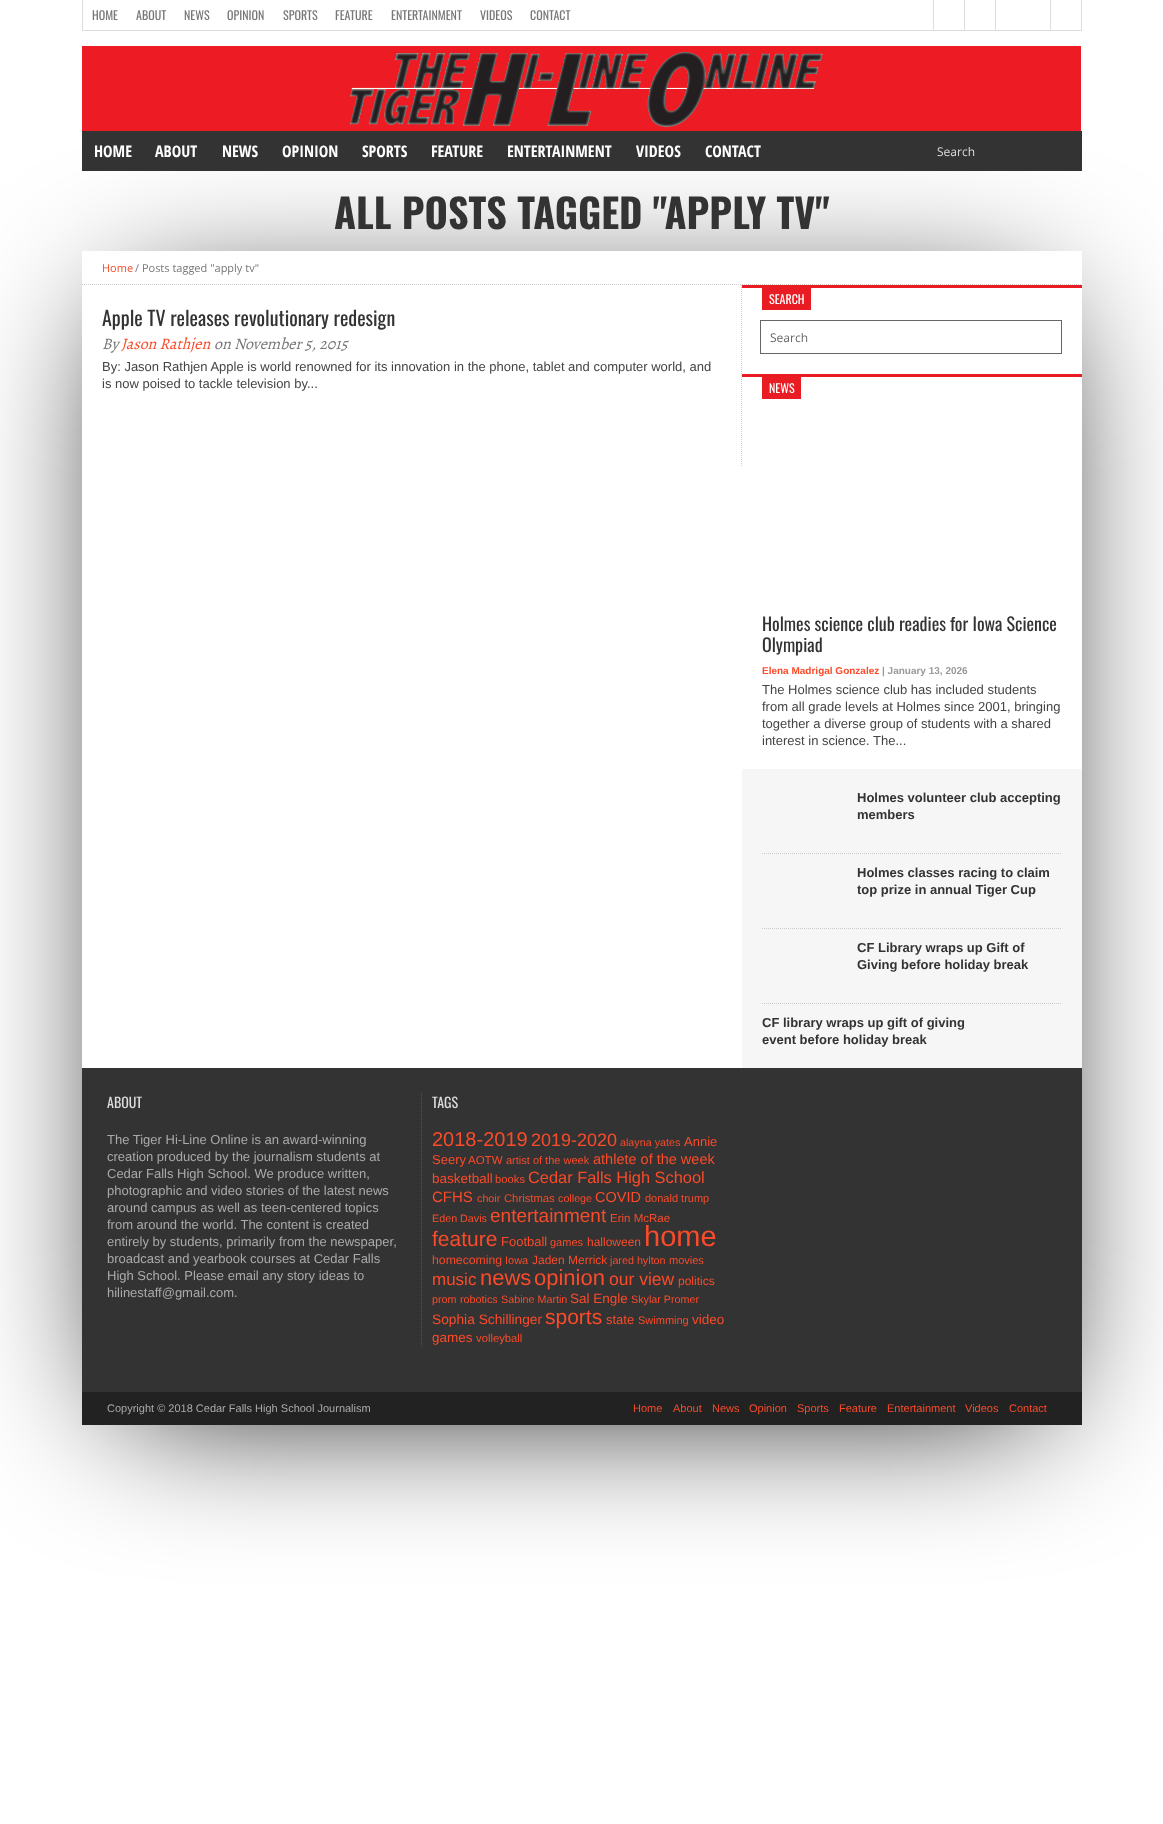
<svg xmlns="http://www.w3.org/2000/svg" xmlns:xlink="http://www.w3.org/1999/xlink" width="1163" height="1824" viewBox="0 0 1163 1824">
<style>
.cls-1{font:12px Oswald;fill:#777777}
.cls-2{font:bold 16px Open Sans Condensed;fill:#ffffff}
.cls-3{font:12px Open Sans;fill:#dddddd}
.cls-4{font:bold 40px Oswald;fill:#333333}
.cls-5{font:11px Open Sans;fill:#fa4b2a}
.cls-6{font:11px Open Sans;fill:#777777}
.cls-7{font:20px Oswald;fill:#333333}
.cls-8{font:italic 16px Alegreya;fill:#777777}
.cls-9{font:italic 16px Alegreya;fill:#fa4b2a}
.cls-10{font:13px Liberation Sans;fill:#444444}
.cls-11{font:12px Oswald;fill:#ffffff}
.cls-12{font:12px Open Sans;fill:#666666}
.cls-13{font:18px Oswald;fill:#333333}
.cls-14{font:bold 10px Liberation Sans;fill:#fa4b2a}
.cls-15{font:bold 10px Liberation Sans;fill:#999999}
.cls-16{font:bold 13px Liberation Sans;fill:#333333}
.cls-17{font:14px Oswald;fill:#dddddd}
.cls-18{font:13px Liberation Sans;fill:#aaaaaa}
.cls-19{font:20px Liberation Sans;fill:#fa4b2a}
.cls-20{font:18px Liberation Sans;fill:#fa4b2a}
.cls-21{font:10.75px Liberation Sans;fill:#fa4b2a}
.cls-22{font:13px Liberation Sans;fill:#fa4b2a}
.cls-23{font:11.5px Liberation Sans;fill:#fa4b2a}
.cls-24{font:11px Liberation Sans;fill:#fa4b2a}
.cls-25{font:14.5px Liberation Sans;fill:#fa4b2a}
.cls-26{font:13.5px Liberation Sans;fill:#fa4b2a}
.cls-27{font:11.25px Liberation Sans;fill:#fa4b2a}
.cls-28{font:16.4px Liberation Sans;fill:#fa4b2a}
.cls-29{font:15px Liberation Sans;fill:#fa4b2a}
.cls-30{font:19px Liberation Sans;fill:#fa4b2a}
.cls-31{font:21px Liberation Sans;fill:#fa4b2a}
.cls-32{font:12px Liberation Sans;fill:#fa4b2a}
.cls-33{font:29px Liberation Sans;fill:#fa4b2a}
.cls-34{font:12.25px Liberation Sans;fill:#fa4b2a}
.cls-35{font:17px Liberation Sans;fill:#fa4b2a}
.cls-36{font:22px Liberation Sans;fill:#fa4b2a}
.cls-37{font:17.5px Liberation Sans;fill:#fa4b2a}
.cls-38{font:13.75px Liberation Sans;fill:#fa4b2a}
.cls-39{font:11px Liberation Sans;fill:#aaaaaa}
</style>
<defs>
<clipPath id="clip1"><path d="M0 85H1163V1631H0ZM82 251H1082V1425H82Z" clip-rule="evenodd"/></clipPath>
</defs>
<rect width="100%" height="100%" fill="#ffffff"/>
<rect fill="#dddddd" x="1081" y="0" width="1" height="31"/>
<rect fill="#dddddd" x="82" y="30" width="1000" height="1"/>
<rect fill="#dddddd" x="82" y="0" width="1" height="31"/>
<rect fill="#dddddd" x="933" y="0" width="1" height="30"/>
<rect fill="#dddddd" x="964" y="0" width="1" height="30"/>
<rect fill="#dddddd" x="995" y="0" width="1" height="30"/>
<rect fill="#dddddd" x="1050" y="0" width="1" height="30"/>
<image xlink:href="image0.png" x="82" y="46" width="999" height="85"/>
<g clip-path="url(#clip1)">
<rect fill="#000000" filter="blur(75px)" x="122" y="311" width="920" height="1094"/>
</g>
<rect fill="#333333" x="82" y="131" width="1000" height="40"/>
<path fill="none" stroke="#cccccc" stroke-dasharray="1 1" d="M82 284.5H1082"/>
<path fill="none" stroke="#cccccc" stroke-dasharray="1 1" d="M741.5 285V467"/>
<rect fill="#e91b23" x="742" y="285" width="340" height="3"/>
<rect fill="#e91b23" x="762" y="288" width="49" height="22"/>
<rect fill="none" stroke="#666666" x="760.5" y="320.5" width="301" height="33"/>
<rect fill="#e91b23" x="742" y="374" width="340" height="3"/>
<rect fill="#e91b23" x="762" y="377" width="39" height="22"/>
<rect fill="#f6f6f6" x="742" y="769" width="340" height="299"/>
<path fill="none" stroke="#cccccc" stroke-dasharray="1 1" d="M762 853.5H1062"/>
<path fill="none" stroke="#cccccc" stroke-dasharray="1 1" d="M762 928.5H1062"/>
<path fill="none" stroke="#cccccc" stroke-dasharray="1 1" d="M762 1003.5H1062"/>
<rect fill="#333333" x="82" y="1068" width="1000" height="324"/>
<path fill="none" stroke="#555555" stroke-dasharray="1 1" d="M421.5 1093V1347"/>
<rect fill="#222222" x="82" y="1392" width="1000" height="33"/>
<text class="cls-1" x="92" y="20">HOME</text>
<text class="cls-1" x="136" y="20">ABOUT</text>
<text class="cls-1" x="184" y="20">NEWS</text>
<text class="cls-1" x="227" y="20">OPINION</text>
<text class="cls-1" x="283" y="20">SPORTS</text>
<text class="cls-1" x="335" y="20">FEATURE</text>
<text class="cls-1" x="391" y="20">ENTERTAINMENT</text>
<text class="cls-1" x="480" y="20">VIDEOS</text>
<text class="cls-1" x="530" y="20">CONTACT</text>
<text class="cls-2" x="94" y="157">HOME</text>
<text class="cls-2" x="155" y="157">ABOUT</text>
<text class="cls-2" x="222" y="157">NEWS</text>
<text class="cls-2" x="282" y="157">OPINION</text>
<text class="cls-2" x="362" y="157">SPORTS</text>
<text class="cls-2" x="431" y="157">FEATURE</text>
<text class="cls-2" x="507" y="157">ENTERTAINMENT</text>
<text class="cls-2" x="636" y="157">VIDEOS</text>
<text class="cls-2" x="705" y="157">CONTACT</text>
<text class="cls-3" x="937" y="156">Search</text>
<text class="cls-4" x="334" y="229">ALL POSTS TAGGED "APPLY TV"</text>
<text class="cls-5" x="102" y="272">Home</text>
<text class="cls-6" x="135" y="272">/ Posts tagged "apply tv"</text>
<text class="cls-7" x="102" y="326">Apple TV releases revolutionary redesign</text>
<text class="cls-8" x="102" y="349">By</text>
<text class="cls-9" x="121" y="349">Jason Rathjen</text>
<text class="cls-8" x="214" y="349">on November 5, 2015</text>
<text class="cls-10"><tspan x="102" y="371">By: Jason Rathjen Apple is world renowned for its innovation in the phone, tablet and computer world, and</tspan><tspan x="102" y="388">is now poised to tackle television by...</tspan></text>
<text class="cls-11" x="769" y="304">SEARCH</text>
<text class="cls-12" x="770" y="342">Search</text>
<text class="cls-11" x="769" y="393">NEWS</text>
<text class="cls-13"><tspan x="762" y="631">Holmes science club readies for Iowa Science</tspan><tspan x="762" y="652">Olympiad</tspan></text>
<text class="cls-14" x="762" y="674">Elena Madrigal Gonzalez</text>
<text class="cls-15" x="882" y="674">| January 13, 2026</text>
<text class="cls-10"><tspan x="762" y="694">The Holmes science club has included students</tspan><tspan x="762" y="711">from all grade levels at Holmes since 2001, bringing</tspan><tspan x="762" y="728">together a diverse group of students with a shared</tspan><tspan x="762" y="745">interest in science. The...</tspan></text>
<text class="cls-16"><tspan x="857" y="802">Holmes volunteer club accepting</tspan><tspan x="857" y="819">members</tspan></text>
<text class="cls-16"><tspan x="857" y="877">Holmes classes racing to claim</tspan><tspan x="857" y="894">top prize in annual Tiger Cup</tspan></text>
<text class="cls-16"><tspan x="857" y="952">CF Library wraps up Gift of</tspan><tspan x="857" y="969">Giving before holiday break</tspan></text>
<text class="cls-16"><tspan x="762" y="1027">CF library wraps up gift of giving</tspan><tspan x="762" y="1044">event before holiday break</tspan></text>
<text class="cls-17" x="107" y="1108">ABOUT</text>
<text class="cls-18"><tspan x="107" y="1144">The Tiger Hi-Line Online is an award-winning</tspan><tspan x="107" y="1161">creation produced by the journalism students at</tspan><tspan x="107" y="1178">Cedar Falls High School. We produce written,</tspan><tspan x="107" y="1195">photographic and video stories of the latest news</tspan><tspan x="107" y="1212">around campus as well as teen-centered topics</tspan><tspan x="107" y="1229">from around the world. The content is created</tspan><tspan x="107" y="1246">entirely by students, primarily from the newspaper,</tspan><tspan x="107" y="1263">broadcast and yearbook courses at Cedar Falls</tspan><tspan x="107" y="1280">High School. Please email any story ideas to</tspan><tspan x="107" y="1297">hilinestaff@gmail.com.</tspan></text>
<text class="cls-17" x="432" y="1108">TAGS</text>
<text class="cls-19" x="432" y="1146">2018-2019</text>
<text class="cls-20" x="531" y="1146">2019-2020</text>
<text class="cls-21" x="620" y="1146">alayna yates</text>
<text class="cls-22" x="684" y="1146">Annie</text>
<text class="cls-22" x="432" y="1164">Seery</text>
<text class="cls-23" x="468" y="1164">AOTW</text>
<text class="cls-24" x="506" y="1164">artist of the week</text>
<text class="cls-25" x="593" y="1164">athlete of the week</text>
<text class="cls-26" x="432" y="1183">basketball</text>
<text class="cls-27" x="495" y="1183">books</text>
<text class="cls-28" x="528" y="1183">Cedar Falls High School</text>
<text class="cls-29" x="432" y="1202">CFHS</text>
<text class="cls-21" x="477" y="1202">choir</text>
<text class="cls-27" x="504" y="1202">Christmas</text>
<text class="cls-21" x="558" y="1202">college</text>
<text class="cls-25" x="595" y="1202">COVID</text>
<text class="cls-24" x="645" y="1202">donald trump</text>
<text class="cls-21" x="432" y="1222">Eden Davis</text>
<text class="cls-30" x="490" y="1222">entertainment</text>
<text class="cls-23" x="610" y="1222">Erin McRae</text>
<text class="cls-31" x="432" y="1246">feature</text>
<text class="cls-22" x="501" y="1246">Football</text>
<text class="cls-24" x="550" y="1246">games</text>
<text class="cls-32" x="587" y="1246">halloween</text>
<text class="cls-33" x="644" y="1246">home</text>
<text class="cls-34" x="432" y="1264">homecoming</text>
<text class="cls-24" x="505" y="1264">Iowa</text>
<text class="cls-32" x="532" y="1264">Jaden Merrick</text>
<text class="cls-21" x="610" y="1264">jared hylton</text>
<text class="cls-24" x="669" y="1264">movies</text>
<text class="cls-35" x="432" y="1285">music</text>
<text class="cls-36" x="480" y="1285">news</text>
<text class="cls-36" x="534" y="1285">opinion</text>
<text class="cls-37" x="609" y="1285">our view</text>
<text class="cls-32" x="678" y="1285">politics</text>
<text class="cls-21" x="432" y="1303">prom</text>
<text class="cls-21" x="460" y="1303">robotics</text>
<text class="cls-21" x="501" y="1303">Sabine Martin</text>
<text class="cls-26" x="570" y="1303">Sal Engle</text>
<text class="cls-21" x="631" y="1303">Skylar Promer</text>
<text class="cls-38" x="432" y="1324">Sophia Schillinger</text>
<text class="cls-31" x="545" y="1324">sports</text>
<text class="cls-22" x="606" y="1324">state</text>
<text class="cls-24" x="638" y="1324">Swimming</text>
<text class="cls-26" x="692" y="1324">video</text>
<text class="cls-26" x="432" y="1342">games</text>
<text class="cls-27" x="476" y="1342">volleyball</text>
<text class="cls-39" x="107" y="1412">Copyright © 2018 Cedar Falls High School Journalism</text>
<text class="cls-24" x="633" y="1412">Home</text>
<text class="cls-24" x="673" y="1412">About</text>
<text class="cls-24" x="712" y="1412">News</text>
<text class="cls-24" x="749" y="1412">Opinion</text>
<text class="cls-24" x="797" y="1412">Sports</text>
<text class="cls-24" x="839" y="1412">Feature</text>
<text class="cls-24" x="887" y="1412">Entertainment</text>
<text class="cls-24" x="965" y="1412">Videos</text>
<text class="cls-24" x="1009" y="1412">Contact</text>
</svg>
